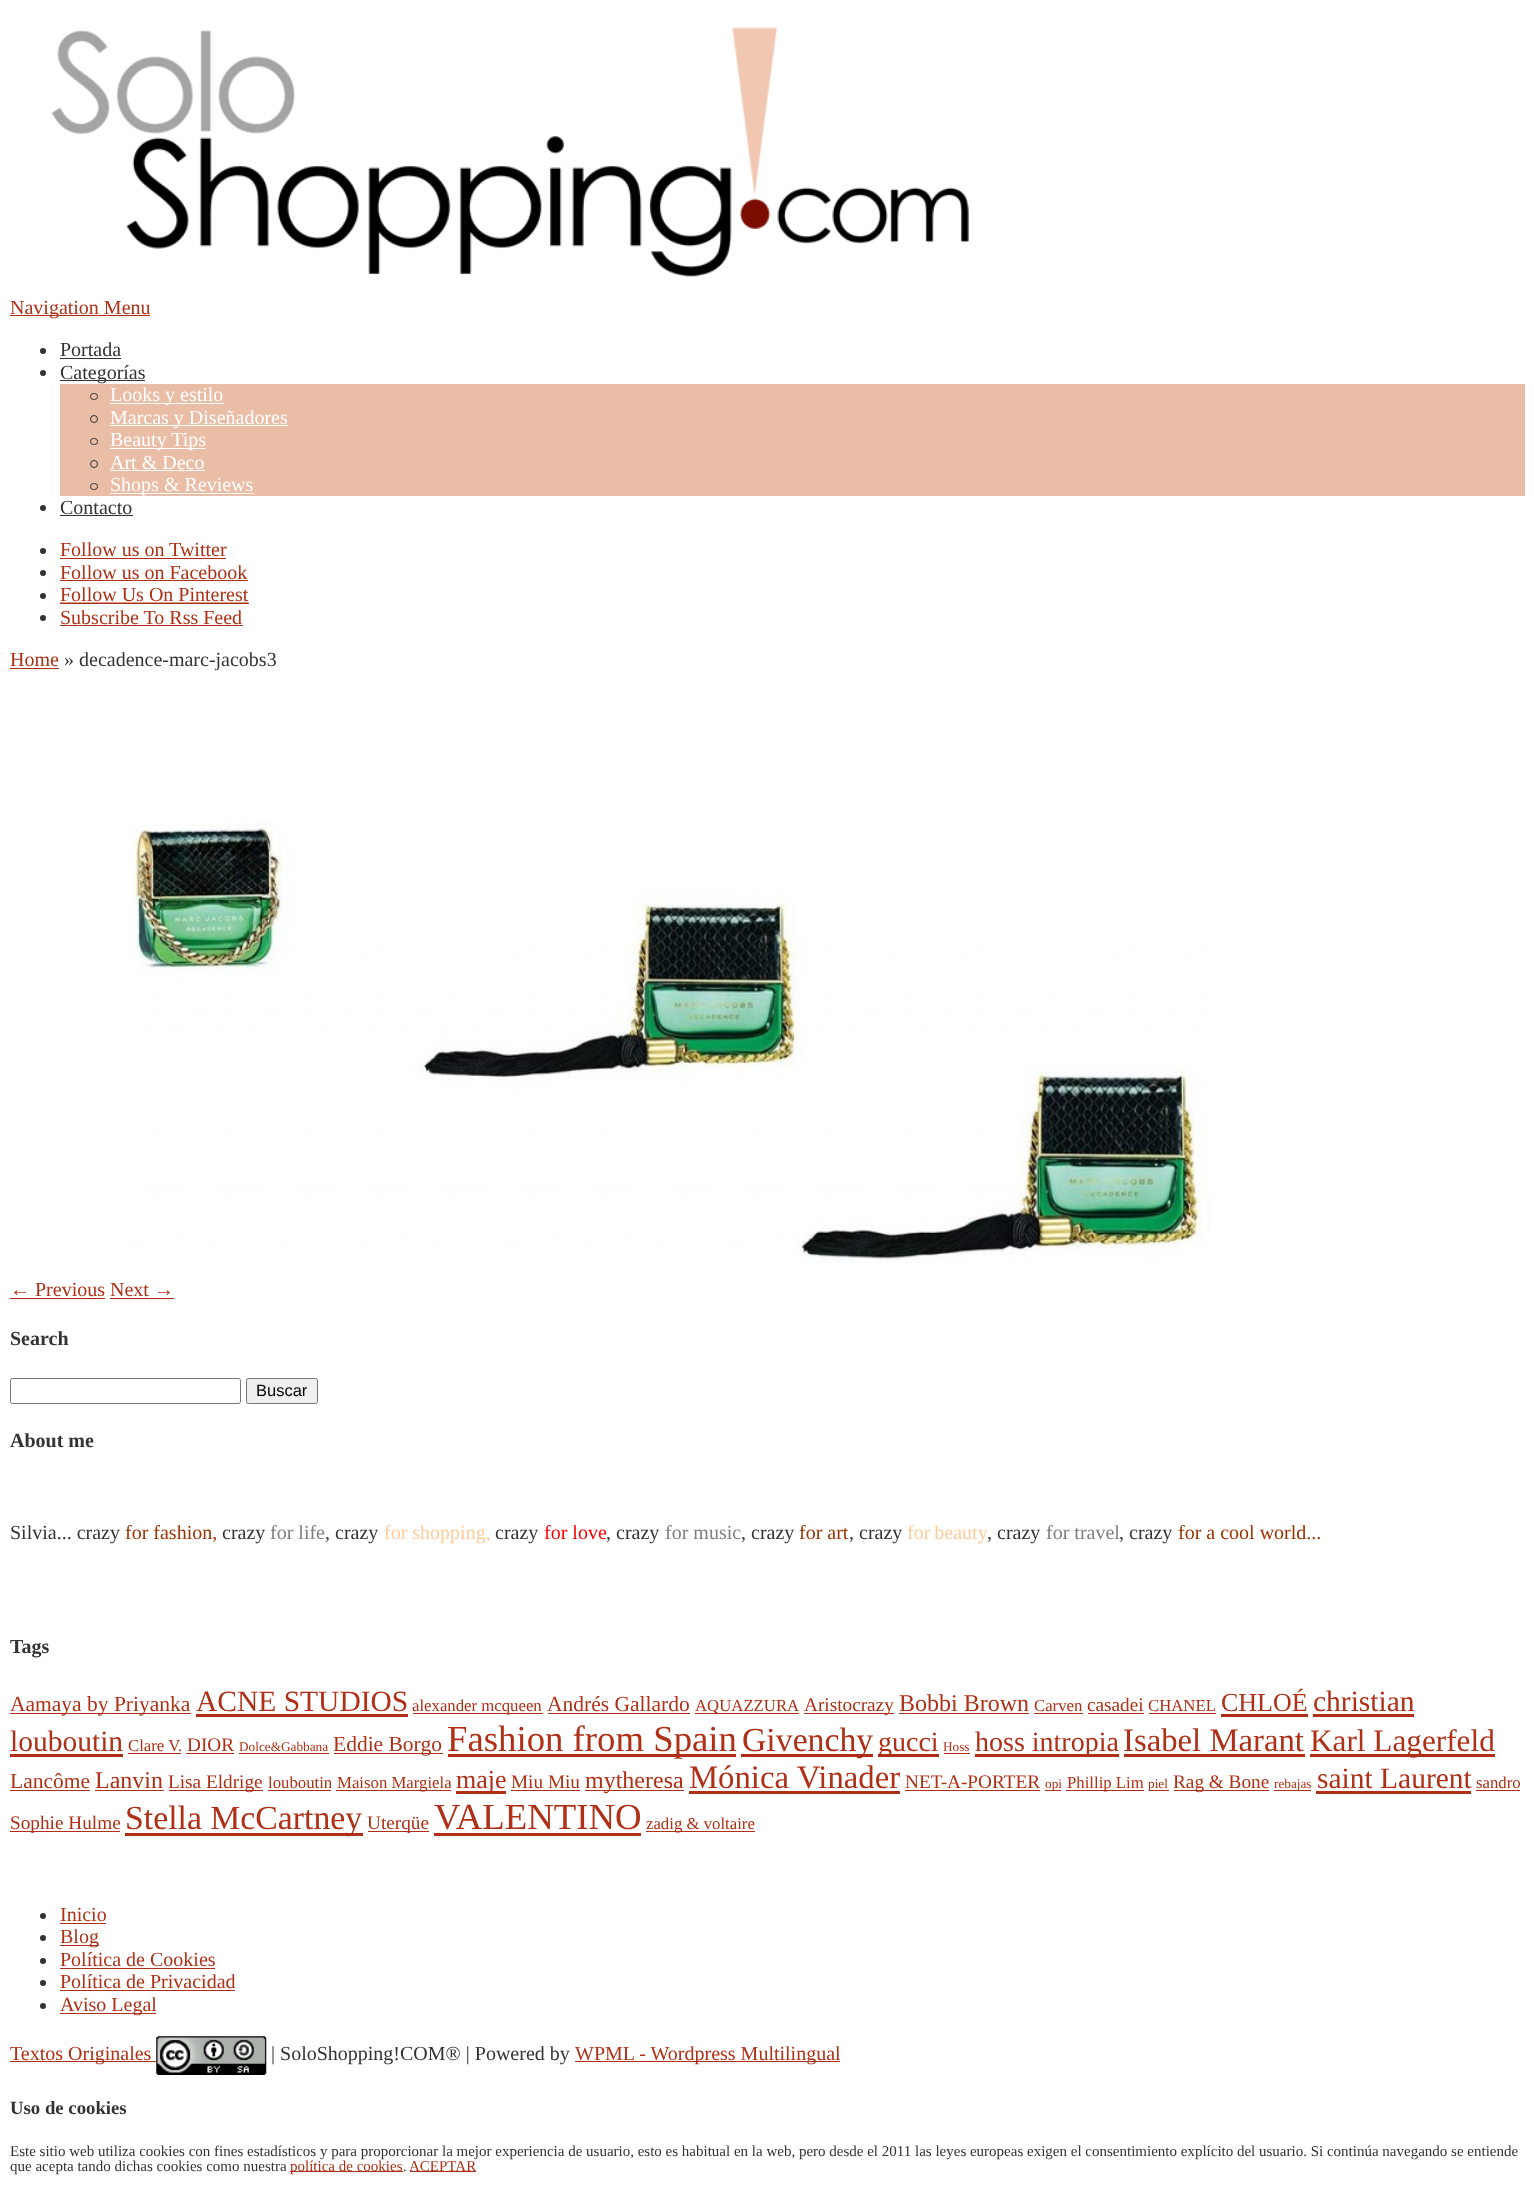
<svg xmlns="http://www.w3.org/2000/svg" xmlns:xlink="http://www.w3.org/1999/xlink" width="1534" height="2201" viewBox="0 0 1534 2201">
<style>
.cls-1{font:20px Liberation Serif;fill:#af3016}
.cls-2{font:20px Liberation Serif;fill:#333333}
.cls-3{font:20px Liberation Serif;fill:#ffffff}
.cls-4{font:bold 20px Liberation Serif;fill:#333333}
.cls-5{font:16.5px Liberation Sans;fill:#000000}
.cls-6{font:20px Liberation Serif;fill:#993300}
.cls-7{font:20px Liberation Serif;fill:#808080}
.cls-8{font:20px Liberation Serif;fill:#ffcc99}
.cls-9{font:20px Liberation Serif;fill:#ff0000}
.cls-10{font:21.5px Liberation Serif;fill:#af3016}
.cls-11{font:29.5px Liberation Serif;fill:#af3016}
.cls-12{font:16.75px Liberation Serif;fill:#af3016}
.cls-13{font:19.25px Liberation Serif;fill:#af3016}
.cls-14{font:24px Liberation Serif;fill:#af3016}
.cls-15{font:26px Liberation Serif;fill:#af3016}
.cls-16{font:13.25px Liberation Serif;fill:#af3016}
.cls-17{font:36.75px Liberation Serif;fill:#af3016}
.cls-18{font:33.75px Liberation Serif;fill:#af3016}
.cls-19{font:28px Liberation Serif;fill:#af3016}
.cls-20{font:32.75px Liberation Serif;fill:#af3016}
.cls-21{font:31.25px Liberation Serif;fill:#af3016}
.cls-22{font:bold 18.75px Liberation Serif;fill:#333333}
.cls-23{font:15px Liberation Serif;fill:#333333}
.cls-24{font:15px Liberation Serif;fill:#af3016}
</style>
<rect width="100%" height="100%" fill="#ffffff"/>
<image xlink:href="image0.png" x="51" y="27" width="918" height="250"/>
<rect fill="#af3016" x="10" y="315" width="140" height="1"/>
<circle fill="#333333" cx="43" cy="351" r="3"/>
<rect fill="#333333" x="60" y="358" width="61" height="1"/>
<circle fill="#333333" cx="43" cy="373" r="3"/>
<rect fill="#333333" x="60" y="380" width="85" height="1"/>
<rect fill="#eabda6" x="60" y="384" width="1465" height="112"/>
<rect fill="none" stroke="#333333" x="90.5" y="393.5" width="7" height="6" rx="3"/>
<rect fill="#ffffff" x="110" y="403" width="114" height="1"/>
<circle fill="none" stroke="#333333" cx="94" cy="419" r="3.5"/>
<rect fill="#ffffff" x="110" y="425" width="178" height="1"/>
<rect fill="none" stroke="#333333" x="90.5" y="438.5" width="7" height="6" rx="3"/>
<rect fill="#ffffff" x="110" y="448" width="96" height="1"/>
<circle fill="none" stroke="#333333" cx="94" cy="464" r="3.5"/>
<rect fill="#ffffff" x="110" y="470" width="95" height="1"/>
<rect fill="none" stroke="#333333" x="90.5" y="483.5" width="7" height="6" rx="3"/>
<rect fill="#ffffff" x="110" y="493" width="144" height="1"/>
<circle fill="#333333" cx="43" cy="508" r="3"/>
<rect fill="#333333" x="60" y="515" width="73" height="1"/>
<circle fill="#333333" cx="43" cy="551" r="3"/>
<rect fill="#af3016" x="60" y="558" width="166" height="1"/>
<circle fill="#333333" cx="43" cy="573" r="3"/>
<rect fill="#af3016" x="60" y="580" width="188" height="1"/>
<circle fill="#333333" cx="43" cy="596" r="3"/>
<rect fill="#af3016" x="60" y="603" width="189" height="1"/>
<image xlink:href="image1.png" x="60" y="602" width="189" height="1"/>
<circle fill="#333333" cx="43" cy="618" r="3"/>
<rect fill="#af3016" x="60" y="625" width="183" height="1"/>
<rect fill="#af3016" x="10" y="668" width="49" height="1"/>
<image xlink:href="image2.png" x="128" y="822" width="1082" height="441"/>
<rect fill="#af3016" x="10" y="1298" width="95" height="1"/>
<rect fill="#af3016" x="110" y="1298" width="64" height="1"/>
<rect fill="none" stroke="#767676" x="10.5" y="1378.5" width="230" height="25" rx="2"/>
<rect fill="#efefef" stroke="#767676" x="246.5" y="1378.5" width="71" height="25" rx="2"/>
<rect fill="#af3016" x="10" y="1713" width="181" height="1"/>
<rect fill="#af3016" x="196" y="1714" width="212" height="3"/>
<rect fill="#af3016" x="413" y="1713" width="130" height="1"/>
<rect fill="#af3016" x="548" y="1713" width="142" height="1"/>
<rect fill="#af3016" x="695" y="1713" width="104" height="1"/>
<rect fill="#af3016" x="804" y="1713" width="90" height="1"/>
<rect fill="#af3016" x="899" y="1713" width="130" height="1"/>
<rect fill="#af3016" x="1034" y="1713" width="49" height="1"/>
<rect fill="#af3016" x="1088" y="1713" width="56" height="1"/>
<rect fill="#af3016" x="1149" y="1713" width="67" height="1"/>
<rect fill="#af3016" x="1221" y="1714" width="87" height="3"/>
<rect fill="#af3016" x="1313" y="1714" width="101" height="3"/>
<rect fill="#af3016" x="10" y="1754" width="113" height="3"/>
<rect fill="#af3016" x="128" y="1753" width="53" height="1"/>
<rect fill="#af3016" x="186" y="1753" width="48" height="1"/>
<rect fill="#af3016" x="239" y="1753" width="90" height="1"/>
<rect fill="#af3016" x="334" y="1753" width="109" height="1"/>
<rect fill="#af3016" x="448" y="1754" width="288" height="3"/>
<rect fill="#af3016" x="741" y="1754" width="132" height="3"/>
<rect fill="#af3016" x="878" y="1754" width="61" height="3"/>
<rect fill="#af3016" x="944" y="1753" width="26" height="1"/>
<rect fill="#af3016" x="975" y="1754" width="144" height="3"/>
<rect fill="#af3016" x="1124" y="1754" width="181" height="3"/>
<rect fill="#af3016" x="1310" y="1754" width="185" height="3"/>
<rect fill="#af3016" x="10" y="1790" width="80" height="1"/>
<rect fill="#af3016" x="95" y="1790" width="69" height="1"/>
<rect fill="#af3016" x="169" y="1790" width="94" height="1"/>
<rect fill="#af3016" x="268" y="1790" width="63" height="1"/>
<rect fill="#af3016" x="336" y="1790" width="115" height="1"/>
<rect fill="#af3016" x="456" y="1791" width="50" height="3"/>
<rect fill="#af3016" x="511" y="1790" width="69" height="1"/>
<rect fill="#af3016" x="585" y="1790" width="99" height="1"/>
<rect fill="#af3016" x="689" y="1791" width="211" height="3"/>
<rect fill="#af3016" x="905" y="1790" width="135" height="1"/>
<rect fill="#af3016" x="1045" y="1790" width="16" height="1"/>
<rect fill="#af3016" x="1066" y="1790" width="78" height="1"/>
<rect fill="#af3016" x="1149" y="1790" width="20" height="1"/>
<rect fill="#af3016" x="1174" y="1790" width="95" height="1"/>
<rect fill="#af3016" x="1274" y="1790" width="37" height="1"/>
<rect fill="#af3016" x="1316" y="1791" width="155" height="3"/>
<rect fill="#af3016" x="1476" y="1790" width="44" height="1"/>
<rect fill="#af3016" x="10" y="1831" width="110" height="1"/>
<rect fill="#af3016" x="125" y="1833" width="238" height="3"/>
<rect fill="#af3016" x="368" y="1831" width="61" height="1"/>
<rect fill="#af3016" x="434" y="1833" width="207" height="3"/>
<rect fill="#af3016" x="646" y="1831" width="109" height="1"/>
<circle fill="#333333" cx="43" cy="1916" r="3"/>
<rect fill="#af3016" x="60" y="1923" width="46" height="1"/>
<circle fill="#333333" cx="43" cy="1938" r="3"/>
<rect fill="#af3016" x="60" y="1945" width="39" height="1"/>
<circle fill="#333333" cx="43" cy="1961" r="3"/>
<rect fill="#af3016" x="60" y="1968" width="155" height="1"/>
<circle fill="#333333" cx="43" cy="1983" r="3"/>
<rect fill="#af3016" x="60" y="1990" width="175" height="1"/>
<circle fill="#333333" cx="43" cy="2006" r="3"/>
<rect fill="#af3016" x="60" y="2013" width="96" height="1"/>
<rect fill="#af3016" x="10" y="2061" width="146" height="1"/>
<image xlink:href="image3.png" x="156" y="2036" width="111" height="39"/>
<rect fill="#af3016" x="575" y="2061" width="265" height="1"/>
<rect fill="#af3016" x="290" y="2171" width="113" height="1"/>
<rect fill="#af3016" x="410" y="2171" width="66" height="1"/>
<text class="cls-1" x="10" y="314">Navigation Menu</text>
<text class="cls-2"><tspan x="60" y="356">Portada</tspan><tspan x="60" y="379">Categorías</tspan></text>
<text class="cls-3"><tspan x="110" y="401">Looks y estilo</tspan><tspan x="110" y="424">Marcas y Diseñadores</tspan><tspan x="110" y="446">Beauty Tips</tspan><tspan x="110" y="469">Art &amp; Deco</tspan><tspan x="110" y="491">Shops &amp; Reviews</tspan></text>
<text class="cls-2" x="60" y="514">Contacto</text>
<text class="cls-1"><tspan x="60" y="556">Follow us on Twitter</tspan><tspan x="60" y="579">Follow us on Facebook</tspan><tspan x="60" y="601">Follow Us On Pinterest</tspan><tspan x="60" y="624">Subscribe To Rss Feed</tspan></text>
<text class="cls-1" x="10" y="666">Home</text>
<text class="cls-2" x="64" y="666">» decadence-marc-jacobs3</text>
<text class="cls-1" x="10" y="1296">← Previous Next →</text>
<text class="cls-4" x="10" y="1345">Search</text>
<text class="cls-5" x="256" y="1396">Buscar</text>
<text class="cls-4" x="10" y="1447">About me</text>
<text class="cls-2" x="10" y="1539">Silvia... crazy</text>
<text class="cls-6" x="125" y="1539">for fashion,</text>
<text class="cls-2" x="222" y="1539">crazy</text>
<text class="cls-7" x="270" y="1539">for life</text>
<text class="cls-2" x="325" y="1539">, crazy</text>
<text class="cls-8" x="384" y="1539">for shopping,</text>
<text class="cls-2" x="495" y="1539">crazy</text>
<text class="cls-9" x="544" y="1539">for love</text>
<text class="cls-2" x="606" y="1539">, crazy</text>
<text class="cls-7" x="665" y="1539">for music</text>
<text class="cls-2" x="741" y="1539">, crazy</text>
<text class="cls-6" x="799" y="1539">for art</text>
<text class="cls-2" x="849" y="1539">, crazy</text>
<text class="cls-8" x="907" y="1539" word-spacing="-1">for beauty</text>
<text class="cls-2" x="987" y="1539">, crazy</text>
<text class="cls-7" x="1046" y="1539">for travel</text>
<text class="cls-2" x="1119" y="1539">, crazy</text>
<text class="cls-6" x="1178" y="1539">for a cool world...</text>
<text class="cls-4" x="10" y="1653">Tags</text>
<text class="cls-10" x="10" y="1711">Aamaya by Priyanka</text>
<text class="cls-11" x="196" y="1711">ACNE STUDIOS</text>
<text class="cls-12" x="412" y="1711">alexander mcqueen</text>
<text class="cls-10" x="547" y="1711">Andrés Gallardo</text>
<text class="cls-12" x="695" y="1711">AQUAZZURA</text>
<text class="cls-13" x="804" y="1711">Aristocrazy</text>
<text class="cls-14" x="899" y="1711">Bobbi Brown</text>
<text class="cls-12" x="1034" y="1711">Carven</text>
<text class="cls-13" x="1087" y="1711">casadei</text>
<text class="cls-12" x="1148" y="1711">CHANEL</text>
<text class="cls-15" x="1221" y="1711">CHLOÉ</text>
<text class="cls-11" x="1313" y="1711">christian</text>
<text class="cls-11" x="10" y="1751">louboutin</text>
<text class="cls-12" x="128" y="1751">Clare V.</text>
<text class="cls-13" x="187" y="1751">DIOR</text>
<text class="cls-16" x="239" y="1751">Dolce&amp;Gabbana</text>
<text class="cls-10" x="333" y="1751">Eddie Borgo</text>
<text class="cls-17" x="447" y="1751">Fashion from Spain</text>
<text class="cls-18" x="742" y="1751">Givenchy</text>
<text class="cls-19" x="878" y="1751">gucci</text>
<text class="cls-16" x="943" y="1751">Hoss</text>
<text class="cls-19" x="975" y="1751">hoss intropia</text>
<text class="cls-20" x="1123" y="1751">Isabel Marant</text>
<text class="cls-21" x="1310" y="1751">Karl Lagerfeld</text>
<text class="cls-10" x="10" y="1788">Lancôme</text>
<text class="cls-14" x="95" y="1788">Lanvin</text>
<text class="cls-13" x="168" y="1788">Lisa Eldrige</text>
<text class="cls-12" x="268" y="1788">louboutin</text>
<text class="cls-12" x="337" y="1788">Maison Margiela</text>
<text class="cls-15" x="456" y="1788">maje</text>
<text class="cls-13" x="511" y="1788">Miu Miu</text>
<text class="cls-14" x="585" y="1788">mytheresa</text>
<text class="cls-20" x="689" y="1788">Mónica Vinader</text>
<text class="cls-13" x="905" y="1788">NET-A-PORTER</text>
<text class="cls-16" x="1045" y="1788">opi</text>
<text class="cls-12" x="1067" y="1788">Phillip Lim</text>
<text class="cls-16" x="1148" y="1788">piel</text>
<text class="cls-13" x="1173" y="1788">Rag &amp; Bone</text>
<text class="cls-16" x="1274" y="1788">rebajas</text>
<text class="cls-11" x="1317" y="1788">saint Laurent</text>
<text class="cls-12" x="1476" y="1788">sandro</text>
<text class="cls-13" x="10" y="1829">Sophie Hulme</text>
<text class="cls-18" x="125" y="1829">Stella McCartney</text>
<text class="cls-13" x="367" y="1829">Uterqüe</text>
<text class="cls-17" x="434" y="1829">VALENTINO</text>
<text class="cls-12" x="646" y="1829">zadig &amp; voltaire</text>
<text class="cls-1"><tspan x="60" y="1921">Inicio</tspan><tspan x="60" y="1943">Blog</tspan><tspan x="60" y="1966">Política de Cookies</tspan><tspan x="60" y="1988">Política de Privacidad</tspan><tspan x="60" y="2011">Aviso Legal</tspan></text>
<text class="cls-1" x="10" y="2060">Textos Originales</text>
<text class="cls-2" x="271" y="2060">| SoloShopping!COM® | Powered by</text>
<text class="cls-1" x="575" y="2060">WPML - Wordpress Multilingual</text>
<text class="cls-22" x="10" y="2114">Uso de cookies</text>
<text class="cls-23"><tspan x="10" y="2156">Este sitio web utiliza cookies con fines estadísticos y para proporcionar la mejor experiencia de usuario, esto es habitual en la web, pero desde el 2011 las leyes europeas exigen el consentimiento explícito del usuario. Si continúa navegando se entiende</tspan><tspan x="10" y="2171">que acepta tando dichas cookies como nuestra</tspan></text>
<text class="cls-24" x="290" y="2171">política de cookies</text>
<text class="cls-23" x="403" y="2171">.</text>
<text class="cls-24" x="409" y="2171">ACEPTAR</text>
</svg>
